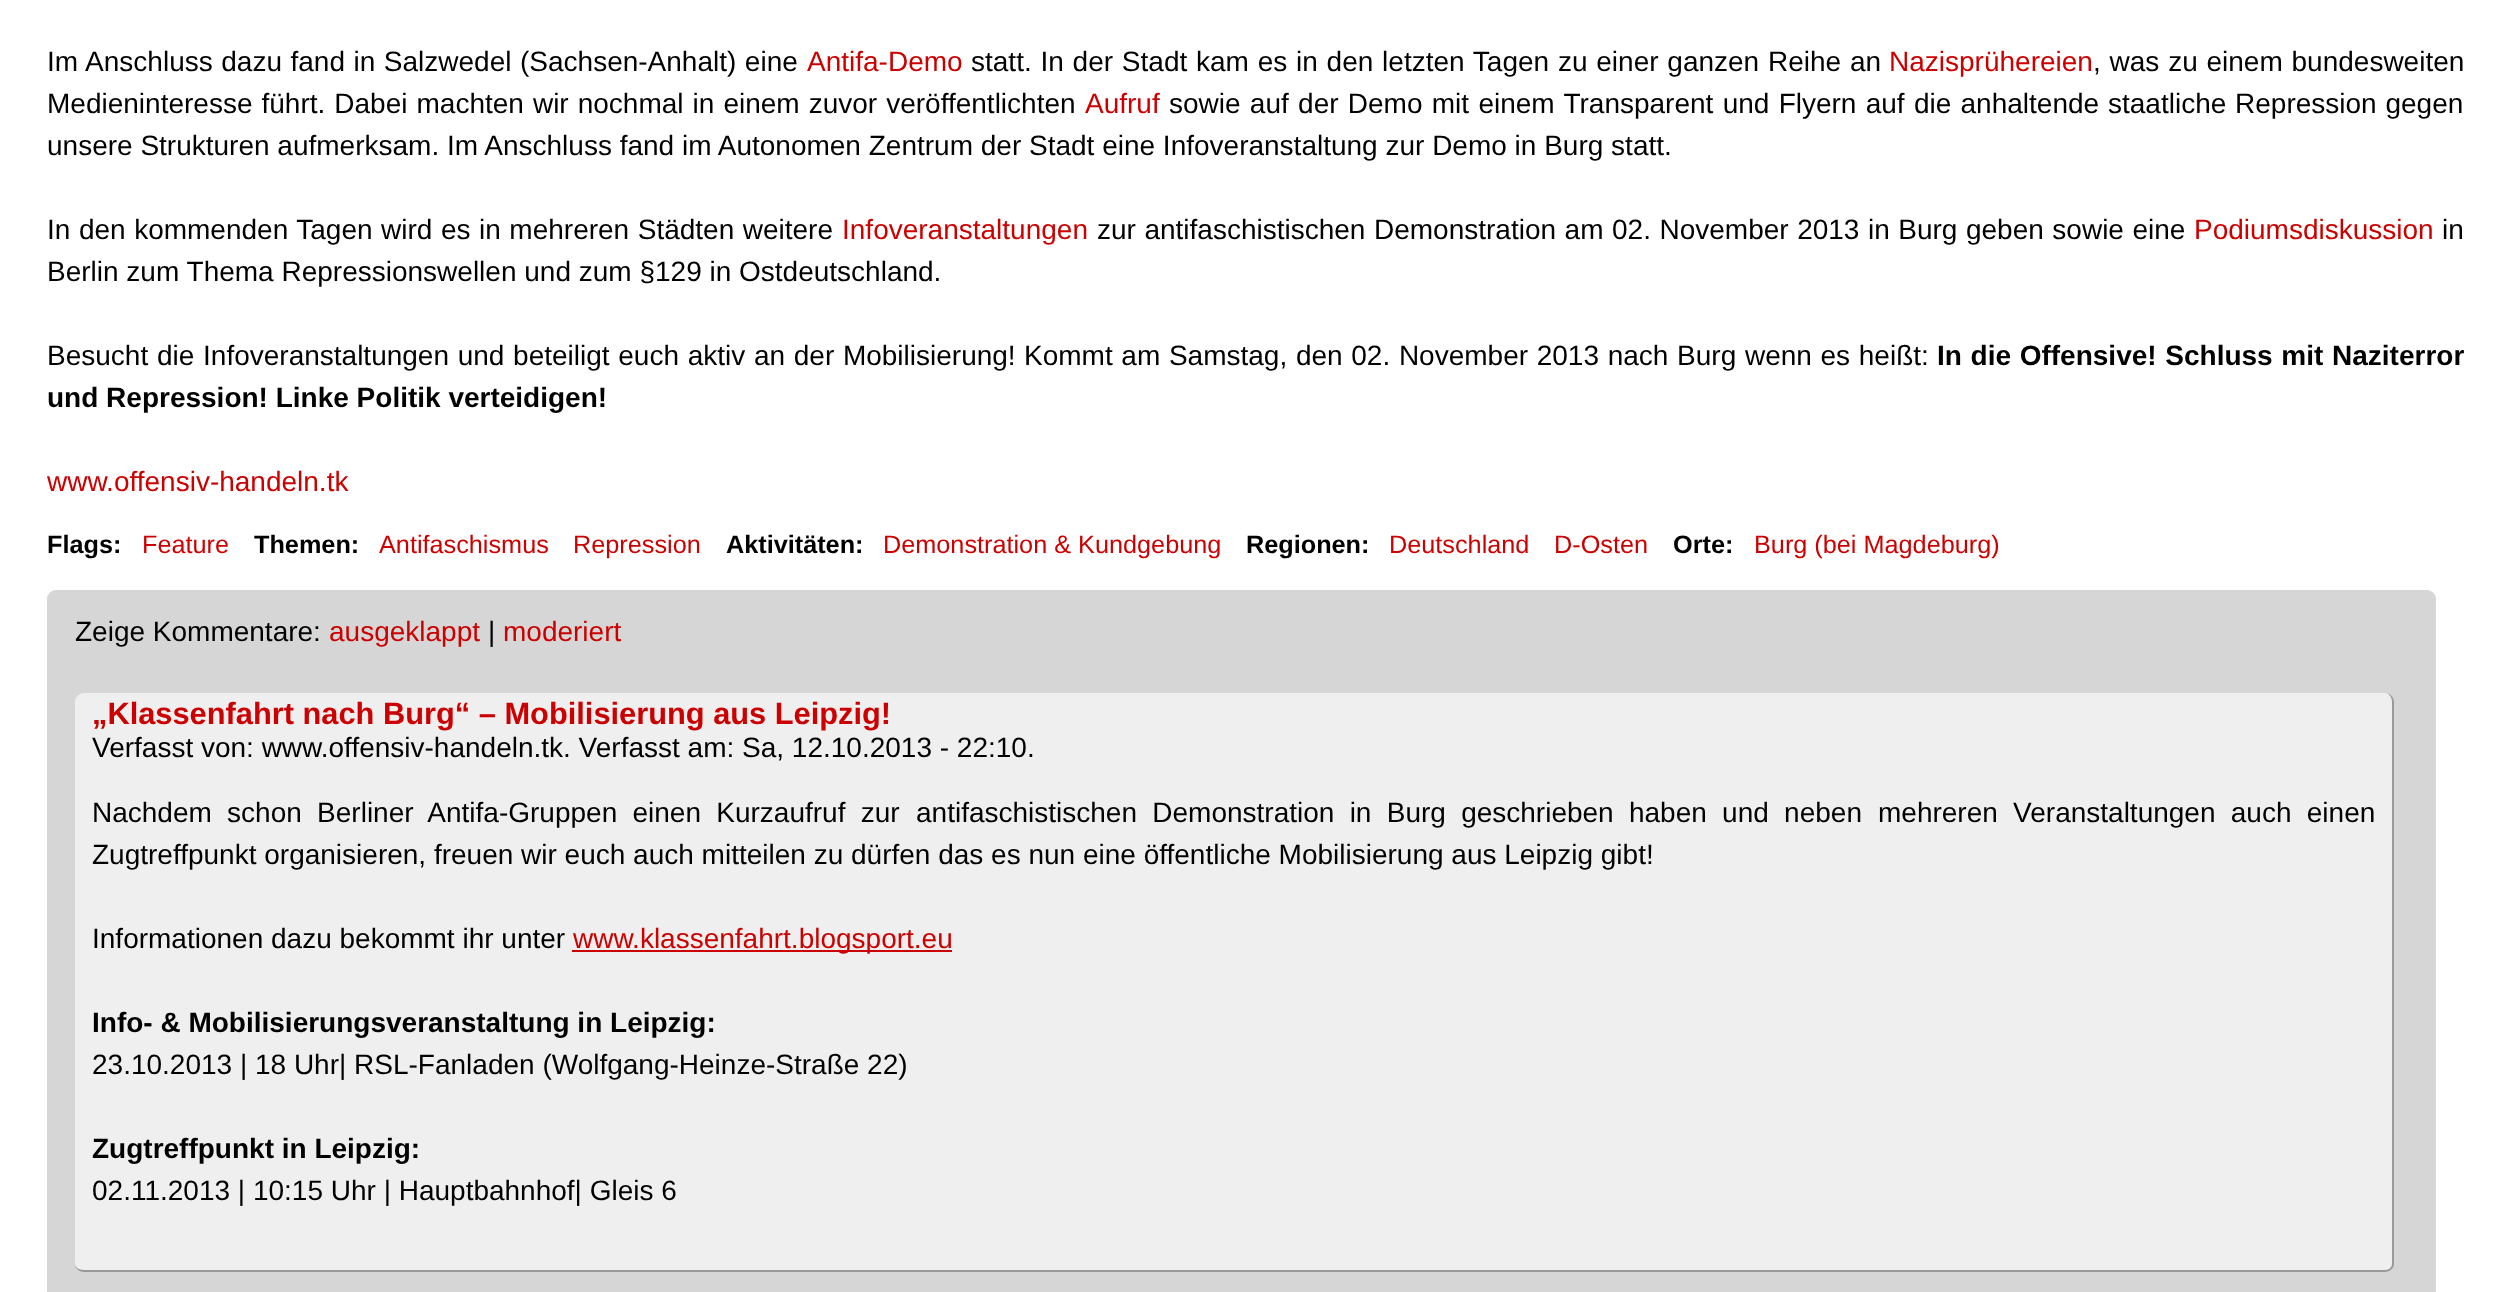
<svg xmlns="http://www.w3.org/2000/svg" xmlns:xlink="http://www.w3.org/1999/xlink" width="2510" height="1292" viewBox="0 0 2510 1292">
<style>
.cls-1{font:28px Liberation Sans;fill:#000000}
.cls-2{font:28px Liberation Sans;fill:#cc0000}
.cls-3{font:bold 28px Liberation Sans;fill:#000000}
.cls-4{font:bold 25.25px Liberation Sans;fill:#000000}
.cls-5{font:25.25px Liberation Sans;fill:#cc0000}
.cls-6{font:bold 30.8px Liberation Sans;fill:#cc0000}
</style>
<rect width="100%" height="100%" fill="#ffffff"/>
<rect fill="#d5d6d5" x="47" y="590" width="2389" height="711" rx="9"/>
<rect fill="#efefef" x="75" y="693" width="2319" height="579" rx="9"/>
<path fill="#999999" fill-rule="evenodd" d="M84 693H2385C2390 693 2394 697 2394 702V1264C2394 1268 2390 1272 2385 1272H84C79 1272 75 1268 75 1264V702C75 697 79 693 84 693ZM84 693H2385C2389 693 2392 697 2392 702V1264C2392 1267 2389 1270 2385 1270H84C79 1270 75 1267 75 1264V702C75 697 79 693 84 693Z"/>
<rect fill="#cc0000" x="572" y="950" width="380" height="2"/>
<text class="cls-1" x="47" y="71" word-spacing="0.75">Im Anschluss dazu fand in Salzwedel (Sachsen-Anhalt) eine</text>
<text class="cls-2" x="807" y="71">Antifa-Demo</text>
<text class="cls-1" x="971" y="71" word-spacing="1">statt. In der Stadt kam es in den letzten Tagen zu einer ganzen Reihe an</text>
<text class="cls-2" x="1889" y="71">Nazisprühereien</text>
<text class="cls-1" x="2093" y="71" word-spacing="1">, was zu einem bundesweiten</text>
<text class="cls-1" x="47" y="113" word-spacing="1.25">Medieninteresse führt. Dabei machten wir nochmal in einem zuvor veröffentlichten</text>
<text class="cls-2" x="1085" y="113">Aufruf</text>
<text class="cls-1" x="1169" y="113" word-spacing="1.5">sowie auf der Demo mit einem Transparent und Flyern auf die anhaltende</text>
<text class="cls-1" x="2108" y="113" word-spacing="1">staatliche Repression gegen</text>
<text class="cls-1" x="47" y="155">unsere Strukturen aufmerksam. Im Anschluss fand im Autonomen Zentrum der Stadt eine Infoveranstaltung zur Demo in Burg statt.</text>
<text class="cls-1" x="47" y="239" word-spacing="0.75">In den kommenden Tagen wird es in mehreren Städten weitere</text>
<text class="cls-2" x="842" y="239">Infoveranstaltungen</text>
<text class="cls-1" x="1097" y="239" word-spacing="0.75">zur antifaschistischen Demonstration am 02. November 2013 in Burg geben sowie eine</text>
<text class="cls-2" x="2194" y="239">Podiumsdiskussion</text>
<text class="cls-1" x="2442" y="239">in</text>
<text class="cls-1" x="47" y="281">Berlin zum Thema Repressionswellen und zum §129 in Ostdeutschland.</text>
<text class="cls-1" x="47" y="365">Besucht</text>
<text class="cls-1" x="157" y="365" word-spacing="0.9">die Infoveranstaltungen und beteiligt euch aktiv an der Mobilisierung!</text>
<text class="cls-1" x="1024" y="365" word-spacing="0.9">Kommt am Samstag, den 02. November 2013 nach Burg wenn es heißt:</text>
<text class="cls-3" x="1937" y="365" word-spacing="0.9">In die Offensive! Schluss mit Naziterror</text>
<text class="cls-3" x="47" y="407">und Repression! Linke Politik verteidigen!</text>
<text class="cls-2" x="47" y="491">www.offensiv-handeln.tk</text>
<text class="cls-4" x="47" y="553">Flags:</text>
<text class="cls-5" x="142" y="553">Feature</text>
<text class="cls-4" x="254" y="553">Themen:</text>
<text class="cls-5" x="379" y="553">Antifaschismus</text>
<text class="cls-5" x="573" y="553">Repression</text>
<text class="cls-4" x="726" y="553">Aktivitäten:</text>
<text class="cls-5" x="883" y="553">Demonstration &amp; Kundgebung</text>
<text class="cls-4" x="1246" y="553">Regionen:</text>
<text class="cls-5" x="1389" y="553">Deutschland</text>
<text class="cls-5" x="1554" y="553">D-Osten</text>
<text class="cls-4" x="1673" y="553">Orte:</text>
<text class="cls-5" x="1754" y="553">Burg (bei Magdeburg)</text>
<text class="cls-1" x="75" y="641">Zeige Kommentare:</text>
<text class="cls-2" x="329" y="641">ausgeklappt</text>
<text class="cls-1" x="488" y="641">|</text>
<text class="cls-2" x="503" y="641">moderiert</text>
<text class="cls-6" x="92" y="724">„Klassenfahrt nach Burg“ – Mobilisierung aus Leipzig!</text>
<text class="cls-1" x="92" y="757">Verfasst von: www.offensiv-handeln.tk. Verfasst am: Sa, 12.10.2013 - 22:10.</text>
<text class="cls-1" x="92" y="822" word-spacing="7.5">Nachdem schon Berliner Antifa-Gruppen einen Kurzaufruf zur</text>
<text class="cls-1" x="916" y="822" word-spacing="7.5">antifaschistischen Demonstration in Burg geschrieben haben und neben</text>
<text class="cls-1" x="1878" y="822" word-spacing="7.5">mehreren Veranstaltungen auch einen</text>
<text class="cls-1" x="92" y="864">Zugtreffpunkt organisieren, freuen wir euch auch mitteilen zu dürfen das es nun eine öffentliche Mobilisierung aus Leipzig gibt!</text>
<text class="cls-1" x="92" y="948">Informationen dazu bekommt ihr unter</text>
<text class="cls-2" x="573" y="948">www.klassenfahrt.blogsport.eu</text>
<text class="cls-3" x="92" y="1032">Info- &amp; Mobilisierungsveranstaltung in Leipzig:</text>
<text class="cls-1" x="92" y="1074">23.10.2013 | 18 Uhr| RSL-Fanladen (Wolfgang-Heinze-Straße 22)</text>
<text class="cls-3" x="92" y="1158">Zugtreffpunkt in Leipzig:</text>
<text class="cls-1" x="92" y="1200">02.11.2013 | 10:15 Uhr | Hauptbahnhof| Gleis 6</text>
</svg>
